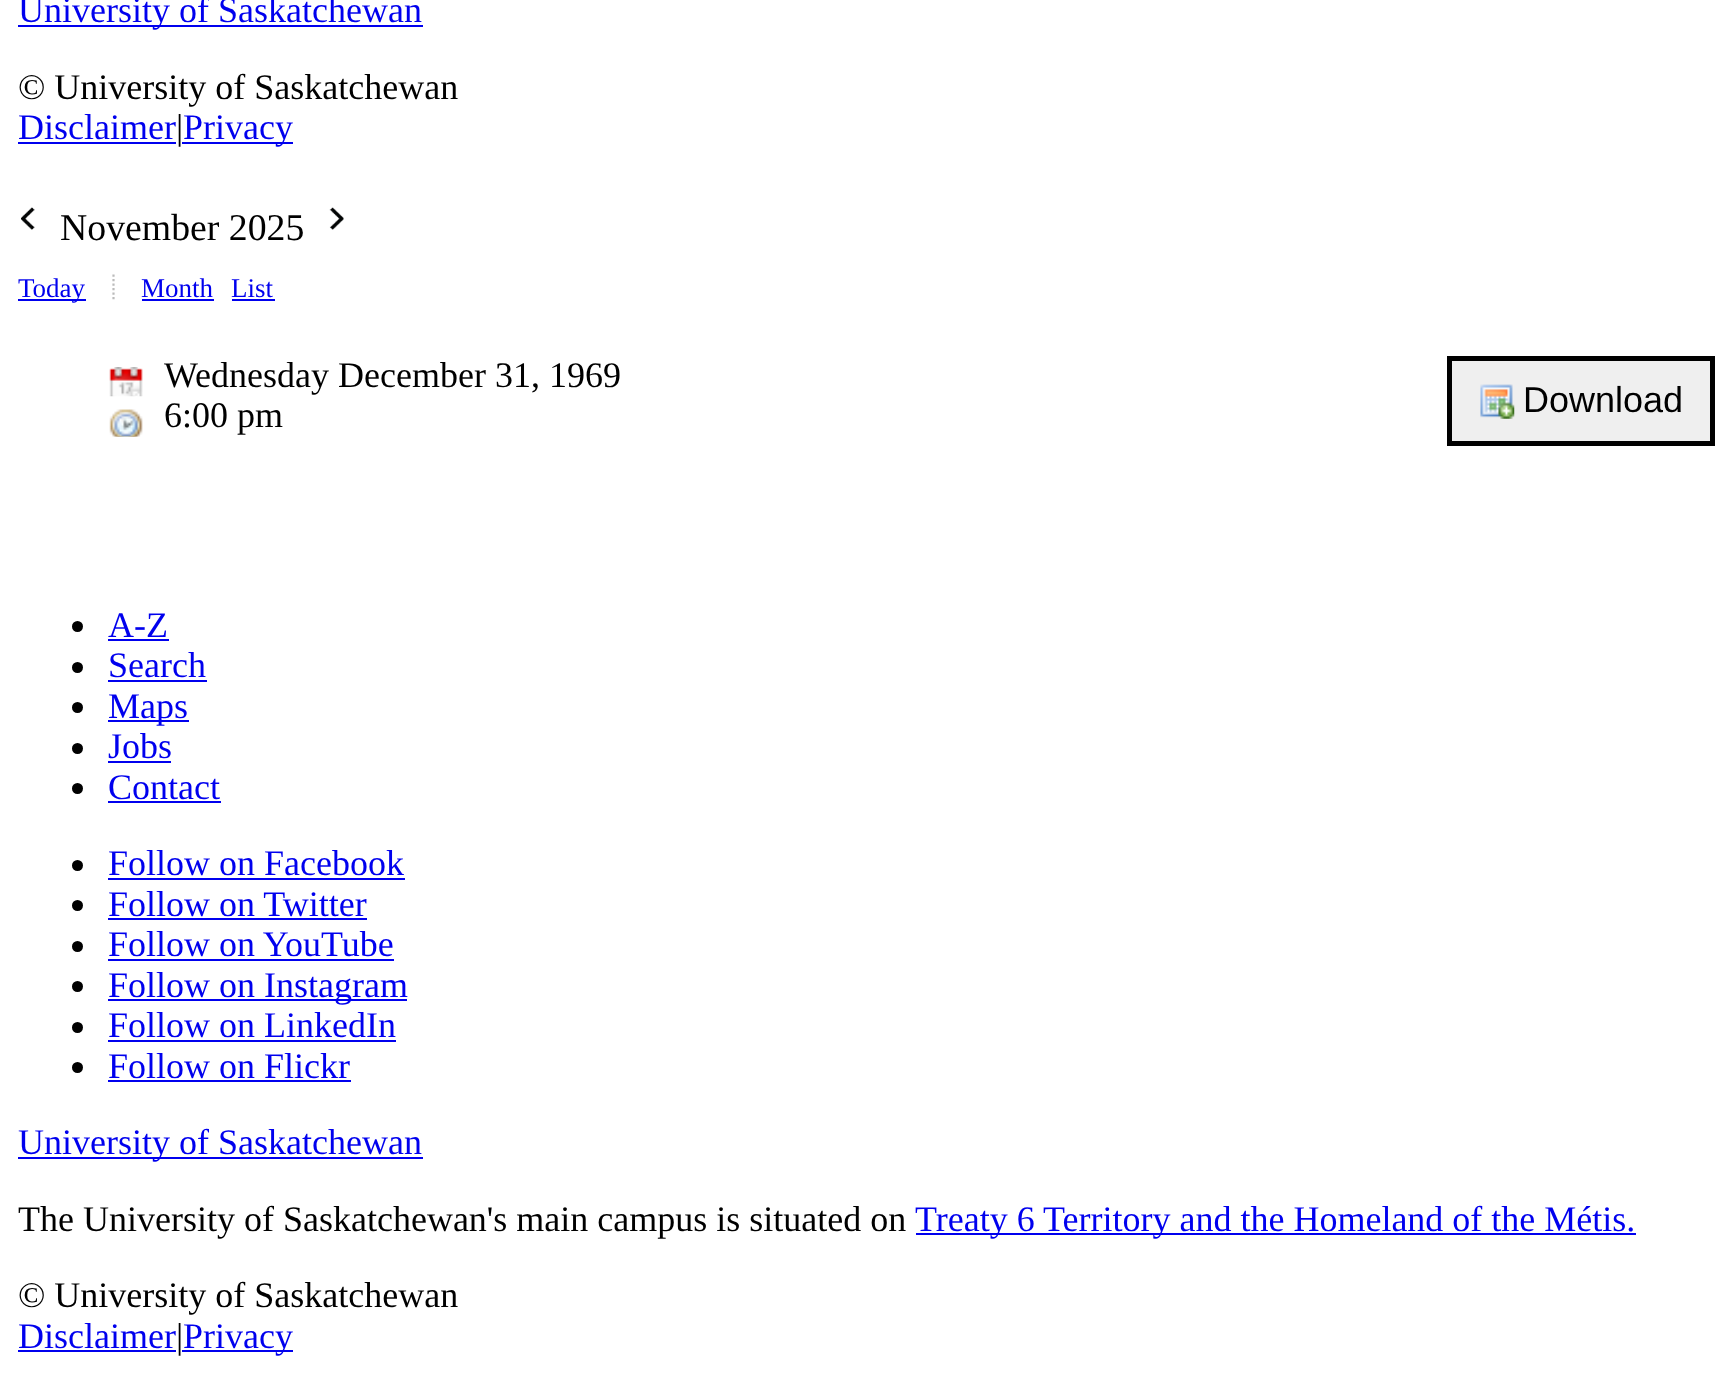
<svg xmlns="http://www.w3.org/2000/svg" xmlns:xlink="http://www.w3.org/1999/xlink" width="1731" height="1391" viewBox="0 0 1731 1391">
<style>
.cls-1{font:36px Liberation Serif;fill:#0000ee}
.cls-2{font:36px Liberation Serif;fill:#000000}
.cls-3{font:37.75px Liberation Serif;fill:#000000}
.cls-4{font:27px Liberation Serif;fill:#0000ee}
.cls-5{font:36px Liberation Sans;fill:#000000}
</style>
<rect width="100%" height="100%" fill="#ffffff"/>
<rect fill="#0000ee" x="18" y="25" width="405" height="2"/>
<rect fill="#0000ee" x="18" y="142" width="158" height="2"/>
<rect fill="#0000ee" x="182" y="142" width="111" height="2"/>
<image xlink:href="image0.png" x="21" y="207" width="14" height="23"/>
<image xlink:href="image1.png" x="329" y="207" width="15" height="23"/>
<path fill="none" stroke="#bbbbbb" stroke-width="2.2" stroke-dasharray="2.25 2.25" d="M113.5 274.5V301.5"/>
<rect fill="#0000ee" x="18" y="299" width="68" height="2"/>
<rect fill="#0000ee" x="142" y="299" width="72" height="2"/>
<rect fill="#0000ee" x="232" y="299" width="43" height="2"/>
<image xlink:href="image2.png" x="109" y="367" width="34" height="30"/>
<rect fill="#efefef" x="1452" y="361" width="258" height="80"/>
<image xlink:href="image3.png" x="1480" y="384" width="35" height="35"/>
<rect fill="none" stroke="#000000" stroke-width="5" x="1449.5" y="358.5" width="263" height="85"/>
<image xlink:href="image4.png" x="109" y="409" width="34" height="28"/>
<circle fill="#000000" cx="77.5" cy="626.5" r="5.5"/>
<rect fill="#0000ee" x="108" y="639" width="61" height="2"/>
<circle fill="#000000" cx="77.5" cy="667.5" r="5.5"/>
<rect fill="#0000ee" x="108" y="680" width="99" height="2"/>
<circle fill="#000000" cx="77.5" cy="707.5" r="5.5"/>
<rect fill="#0000ee" x="108" y="720" width="81" height="2"/>
<circle fill="#000000" cx="77.5" cy="748.5" r="5.5"/>
<rect fill="#0000ee" x="108" y="761" width="63" height="2"/>
<circle fill="#000000" cx="77.5" cy="788.5" r="5.5"/>
<rect fill="#0000ee" x="108" y="801" width="113" height="2"/>
<circle fill="#000000" cx="77.5" cy="865.5" r="5.5"/>
<rect fill="#0000ee" x="108" y="878" width="297" height="2"/>
<circle fill="#000000" cx="77.5" cy="905.5" r="5.5"/>
<rect fill="#0000ee" x="108" y="918" width="259" height="2"/>
<circle fill="#000000" cx="77.5" cy="946.5" r="5.5"/>
<rect fill="#0000ee" x="108" y="959" width="286" height="2"/>
<circle fill="#000000" cx="77.5" cy="986.5" r="5.5"/>
<rect fill="#0000ee" x="108" y="999" width="299" height="2"/>
<circle fill="#000000" cx="77.5" cy="1027.5" r="5.5"/>
<rect fill="#0000ee" x="108" y="1040" width="288" height="2"/>
<circle fill="#000000" cx="77.5" cy="1067.5" r="5.5"/>
<rect fill="#0000ee" x="108" y="1080" width="243" height="2"/>
<rect fill="#0000ee" x="18" y="1157" width="405" height="2"/>
<rect fill="#0000ee" x="916" y="1233" width="720" height="2"/>
<rect fill="#0000ee" x="18" y="1350" width="158" height="2"/>
<rect fill="#0000ee" x="182" y="1350" width="111" height="2"/>
<text class="cls-1" x="18" y="22">University of Saskatchewan</text>
<text class="cls-2" x="18" y="99">© University of Saskatchewan</text>
<text class="cls-1" x="18" y="139">Disclaimer</text>
<text class="cls-2" x="176" y="139">|</text>
<text class="cls-1" x="183" y="139">Privacy</text>
<text class="cls-3" x="60" y="240">November 2025</text>
<text class="cls-4" x="18" y="297">Today</text>
<text class="cls-4" x="141" y="297">Month</text>
<text class="cls-4" x="231" y="297">List</text>
<text class="cls-2" x="164" y="387">Wednesday December 31, 1969</text>
<text class="cls-5" x="1523" y="412">Download</text>
<text class="cls-2" x="164" y="427">6:00 pm</text>
<text class="cls-1"><tspan x="108" y="637">A-Z</tspan><tspan x="108" y="677">Search</tspan><tspan x="108" y="718">Maps</tspan><tspan x="108" y="758">Jobs</tspan><tspan x="108" y="799">Contact</tspan></text>
<text class="cls-1"><tspan x="108" y="875">Follow on Facebook</tspan><tspan x="108" y="916">Follow on Twitter</tspan><tspan x="108" y="956">Follow on YouTube</tspan><tspan x="108" y="997">Follow on Instagram</tspan><tspan x="108" y="1037">Follow on LinkedIn</tspan><tspan x="108" y="1078">Follow on Flickr</tspan></text>
<text class="cls-1" x="18" y="1154">University of Saskatchewan</text>
<text class="cls-2" x="18" y="1231">The University of Saskatchewan's main campus is situated on</text>
<text class="cls-1" x="915" y="1231">Treaty 6 Territory and the Homeland of the Métis.</text>
<text class="cls-2" x="18" y="1307">© University of Saskatchewan</text>
<text class="cls-1" x="18" y="1348">Disclaimer</text>
<text class="cls-2" x="176" y="1348">|</text>
<text class="cls-1" x="183" y="1348">Privacy</text>
</svg>
